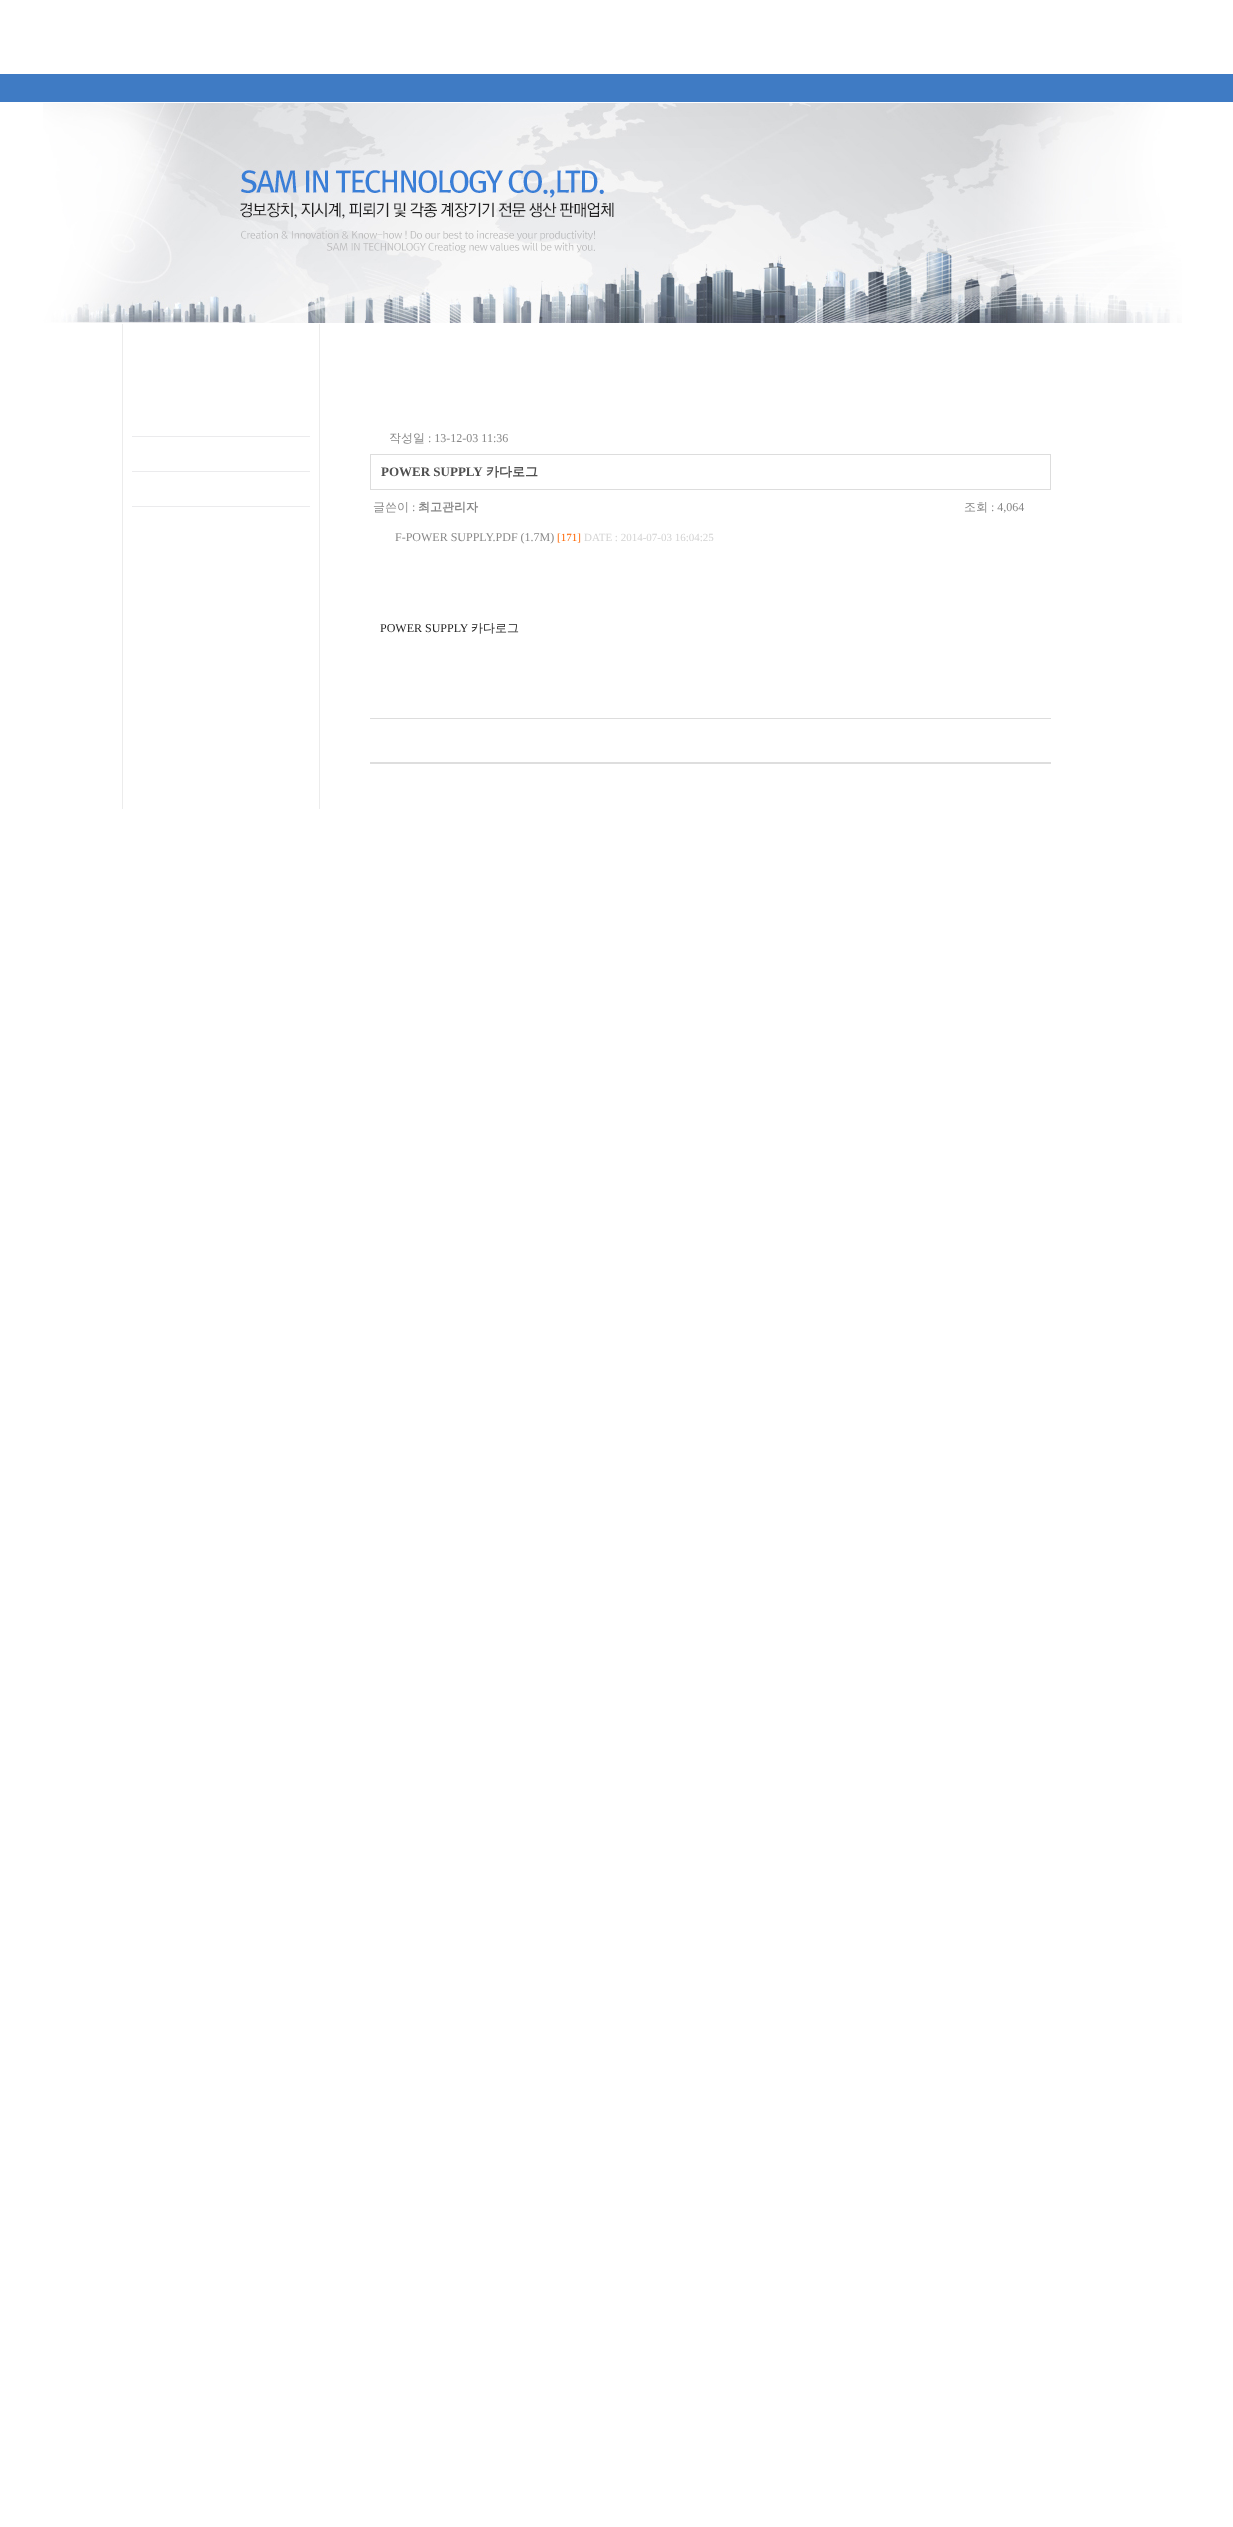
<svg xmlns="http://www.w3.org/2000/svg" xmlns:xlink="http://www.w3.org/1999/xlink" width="1233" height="2527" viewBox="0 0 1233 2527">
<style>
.cls-1{font:500 12px WenQuanYi Zen Hei;fill:#888888}
.cls-2{font:12px Liberation Serif;fill:#888888}
.cls-3{font:bold 13px Liberation Serif;fill:#505050}
.cls-4{font:bold 13px WenQuanYi Zen Hei;fill:#505050}
.cls-5{font:bold 12px WenQuanYi Zen Hei;fill:#888888}
.cls-6{font:11px Liberation Serif;fill:#ff6600}
.cls-7{font:11px Liberation Serif;fill:#d3d3d3}
.cls-8{font:12px Liberation Serif;fill:#222222}
.cls-9{font:500 12px WenQuanYi Zen Hei;fill:#222222}
</style>
<rect width="100%" height="100%" fill="#ffffff"/>
<rect fill="#3f7bc4" x="0" y="74" width="1233" height="28"/>
<image xlink:href="image0.png" x="43" y="103" width="1139" height="220"/>
<rect fill="#ececec" x="122" y="324" width="1" height="485"/>
<rect fill="#ebebed" x="132" y="436" width="178" height="1"/>
<rect fill="#ebebed" x="132" y="471" width="178" height="1"/>
<rect fill="#ebebed" x="132" y="506" width="178" height="1"/>
<rect fill="#ececec" x="319" y="324" width="1" height="485"/>
<rect fill="none" stroke="#dddddd" x="370.5" y="454.5" width="680" height="35"/>
<rect fill="#dddddd" x="370" y="718" width="681" height="1"/>
<rect fill="#dedede" x="370" y="762" width="681" height="2"/>
<text class="cls-1" x="389" y="442">작성일</text>
<text class="cls-2" x="428" y="442">: 13-12-03 11:36</text>
<text class="cls-3" x="381" y="476">POWER SUPPLY</text>
<text class="cls-4" x="486" y="476">카다로그</text>
<text class="cls-1" x="373" y="511">글쓴이</text>
<text class="cls-2" x="412" y="511">:</text>
<text class="cls-5" x="418" y="511">최고관리자</text>
<text class="cls-1" x="964" y="511">조회</text>
<text class="cls-2" x="991" y="511">: 4,064</text>
<text class="cls-2" x="395" y="541">F-POWER SUPPLY.PDF (1.7M)</text>
<text class="cls-6" x="557" y="541">[171]</text>
<text class="cls-7" x="584" y="541">DATE : 2014-07-03 16:04:25</text>
<text class="cls-8" x="380" y="632">POWER SUPPLY</text>
<text class="cls-9" x="471" y="632">카다로그</text>
</svg>
